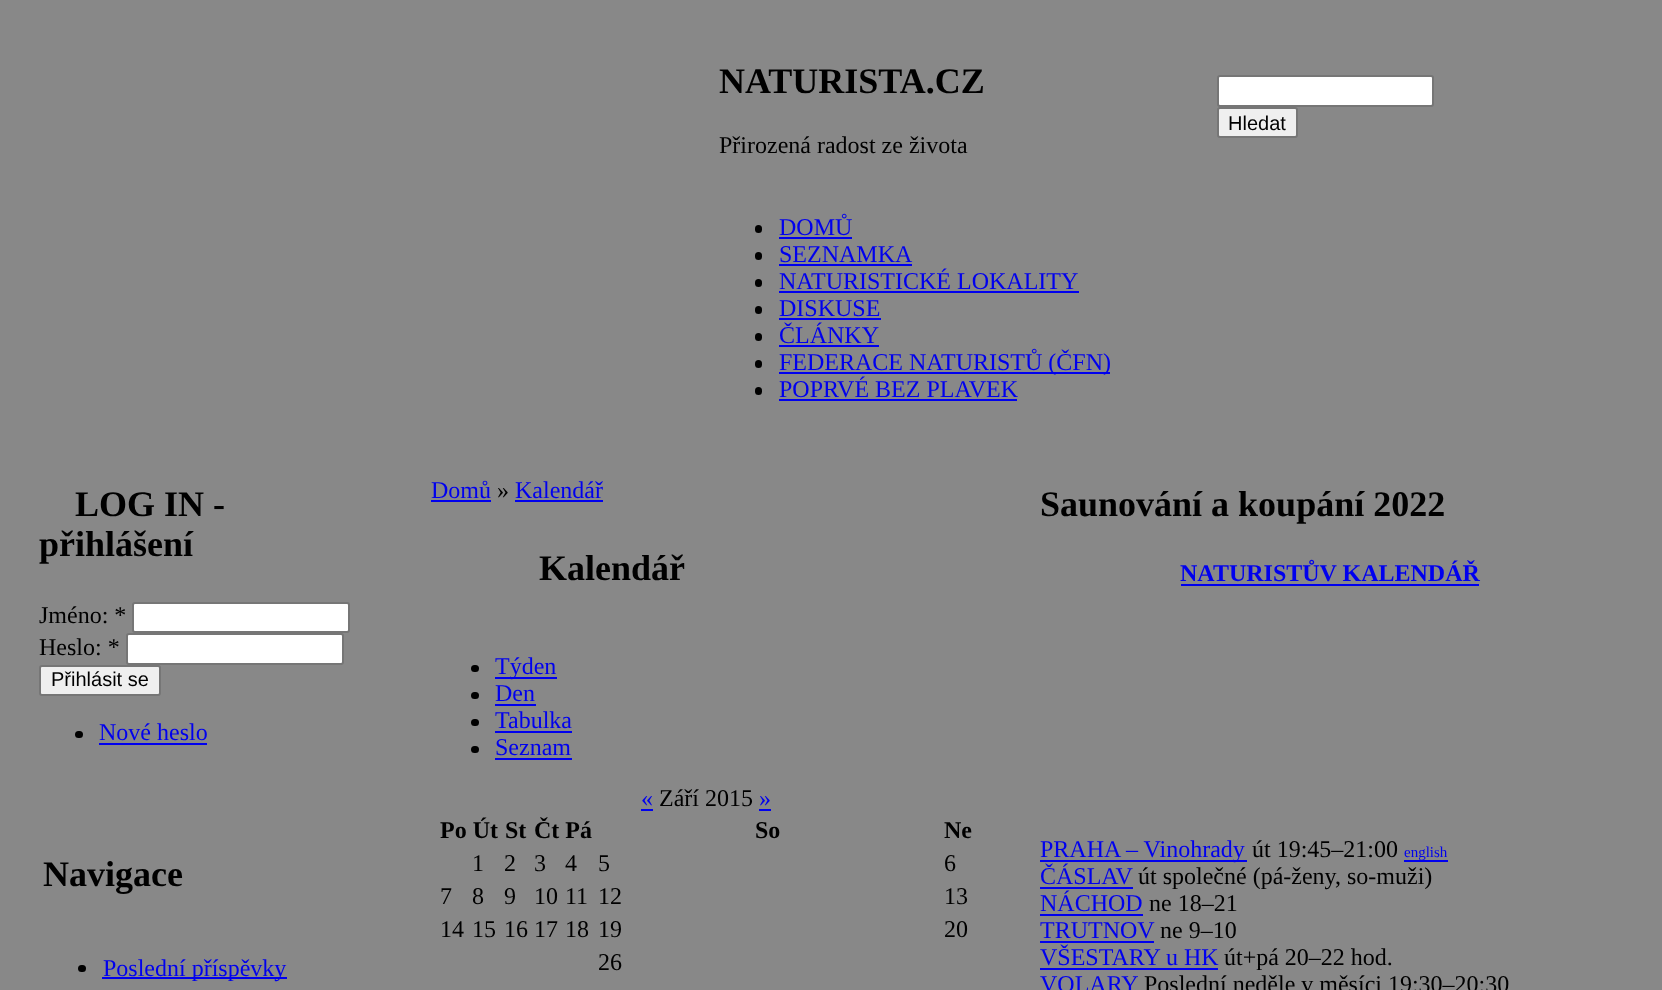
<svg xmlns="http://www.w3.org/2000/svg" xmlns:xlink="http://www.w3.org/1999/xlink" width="1662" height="990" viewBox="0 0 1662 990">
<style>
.cls-1{font:bold 36px Liberation Serif;fill:#000000}
.cls-2{font:24px Liberation Serif;fill:#000000}
.cls-3{font:20px Liberation Sans;fill:#000000}
.cls-4{font:24px Liberation Serif;fill:#0000ee}
.cls-5{font:bold 24px Liberation Serif;fill:#000000}
.cls-6{font:bold 24px Liberation Serif;fill:#0000ee}
.cls-7{font:15px Liberation Serif;fill:#0000ee}
</style>
<rect width="100%" height="100%" fill="#888888"/>
<rect fill="#ffffff" stroke="#767676" stroke-width="2" x="1218" y="76" width="215" height="30" rx="2"/>
<rect fill="#efefef" stroke="#767676" stroke-width="2" x="1218" y="108" width="79" height="29" rx="2"/>
<rect fill="#000000" x="755" y="225" width="7" height="8" rx="3.5"/>
<rect fill="#0000ee" x="779" y="237" width="73" height="2"/>
<rect fill="#000000" x="755" y="252" width="7" height="8" rx="3.5"/>
<rect fill="#0000ee" x="779" y="264" width="133" height="2"/>
<rect fill="#000000" x="755" y="279" width="7" height="8" rx="3.5"/>
<rect fill="#0000ee" x="779" y="291" width="300" height="2"/>
<rect fill="#000000" x="755" y="306" width="7" height="8" rx="3.5"/>
<rect fill="#0000ee" x="779" y="318" width="102" height="2"/>
<rect fill="#000000" x="755" y="333" width="7" height="8" rx="3.5"/>
<rect fill="#0000ee" x="779" y="345" width="100" height="2"/>
<rect fill="#000000" x="755" y="360" width="7" height="8" rx="3.5"/>
<rect fill="#0000ee" x="779" y="372" width="331" height="2"/>
<rect fill="#000000" x="755" y="387" width="7" height="8" rx="3.5"/>
<rect fill="#0000ee" x="779" y="399" width="238" height="2"/>
<rect fill="#ffffff" stroke="#767676" stroke-width="2" x="133" y="603" width="216" height="29" rx="2"/>
<rect fill="#ffffff" stroke="#767676" stroke-width="2" x="127" y="634" width="216" height="30" rx="2"/>
<rect fill="#efefef" stroke="#767676" stroke-width="2" x="40" y="666" width="120" height="29" rx="2"/>
<rect fill="#000000" x="75" y="731" width="8" height="7" rx="3.5"/>
<rect fill="#0000ee" x="99" y="743" width="108" height="2"/>
<rect fill="#000000" x="78" y="965" width="8" height="7" rx="3.5"/>
<rect fill="#0000ee" x="102" y="977" width="185" height="2"/>
<rect fill="#0000ee" x="431" y="500" width="60" height="2"/>
<rect fill="#0000ee" x="515" y="500" width="88" height="2"/>
<rect fill="#000000" x="471" y="665" width="8" height="7" rx="3.5"/>
<rect fill="#0000ee" x="495" y="677" width="62" height="2"/>
<rect fill="#000000" x="471" y="692" width="8" height="7" rx="3.5"/>
<rect fill="#0000ee" x="495" y="704" width="41" height="2"/>
<rect fill="#000000" x="471" y="719" width="8" height="7" rx="3.5"/>
<rect fill="#0000ee" x="495" y="731" width="77" height="2"/>
<rect fill="#000000" x="471" y="746" width="8" height="7" rx="3.5"/>
<rect fill="#0000ee" x="495" y="758" width="77" height="2"/>
<rect fill="#0000ee" x="641" y="809" width="12" height="2"/>
<rect fill="#0000ee" x="759" y="809" width="12" height="2"/>
<rect fill="#0000ee" x="1181" y="584" width="298" height="2"/>
<rect fill="#0000ee" x="1040" y="860" width="207" height="2"/>
<rect fill="#0000ee" x="1404" y="860" width="44" height="2"/>
<rect fill="#0000ee" x="1040" y="887" width="93" height="2"/>
<rect fill="#0000ee" x="1040" y="914" width="103" height="2"/>
<rect fill="#0000ee" x="1040" y="941" width="114" height="2"/>
<rect fill="#0000ee" x="1040" y="968" width="178" height="2"/>
<text class="cls-1" x="719" y="93">NATURISTA.CZ</text>
<text class="cls-2" x="719" y="153">Přirozená radost ze života</text>
<text class="cls-3" x="1228" y="130">Hledat</text>
<text class="cls-4"><tspan x="779" y="235">DOMŮ</tspan><tspan x="779" y="262">SEZNAMKA</tspan><tspan x="779" y="289">NATURISTICKÉ LOKALITY</tspan><tspan x="779" y="316">DISKUSE</tspan><tspan x="779" y="343">ČLÁNKY</tspan><tspan x="779" y="370">FEDERACE NATURISTŮ (ČFN)</tspan><tspan x="779" y="397">POPRVÉ BEZ PLAVEK</tspan></text>
<text class="cls-1" x="75" y="516">LOG IN -</text>
<text class="cls-1" x="39" y="556">přihlášení</text>
<text class="cls-2"><tspan x="39" y="623">Jméno: *</tspan><tspan x="39" y="655">Heslo: *</tspan></text>
<text class="cls-3" x="51" y="686">Přihlásit se</text>
<text class="cls-4" x="99" y="740">Nové heslo</text>
<text class="cls-1" x="43" y="886">Navigace</text>
<text class="cls-4" x="103" y="976">Poslední příspěvky</text>
<text class="cls-4" x="431" y="498">Domů</text>
<text class="cls-2" x="497" y="498">»</text>
<text class="cls-4" x="515" y="498">Kalendář</text>
<text class="cls-1" x="539" y="580">Kalendář</text>
<text class="cls-4"><tspan x="495" y="674">Týden</tspan><tspan x="495" y="701">Den</tspan><tspan x="495" y="728">Tabulka</tspan><tspan x="495" y="755">Seznam</tspan></text>
<text class="cls-4" x="641" y="806">«</text>
<text class="cls-2" x="659" y="806">Září 2015</text>
<text class="cls-4" x="759" y="806">»</text>
<text class="cls-5" x="440" y="838">Po Út</text>
<text class="cls-5" x="505" y="838">St</text>
<text class="cls-5" x="534" y="838">Čt Pá</text>
<text class="cls-5" x="755" y="838">So</text>
<text class="cls-5" x="944" y="838">Ne</text>
<text class="cls-2" x="472" y="871">1</text>
<text class="cls-2" x="504" y="871">2</text>
<text class="cls-2" x="534" y="871">3</text>
<text class="cls-2" x="565" y="871">4</text>
<text class="cls-2" x="598" y="871">5</text>
<text class="cls-2" x="944" y="871">6</text>
<text class="cls-2" x="440" y="904">7</text>
<text class="cls-2" x="472" y="904">8</text>
<text class="cls-2" x="504" y="904">9</text>
<text class="cls-2" x="534" y="904">10</text>
<text class="cls-2" x="565" y="904">11</text>
<text class="cls-2" x="598" y="904">12</text>
<text class="cls-2" x="944" y="904">13</text>
<text class="cls-2" x="440" y="937">14</text>
<text class="cls-2" x="472" y="937">15</text>
<text class="cls-2" x="504" y="937">16 17</text>
<text class="cls-2" x="565" y="937">18</text>
<text class="cls-2" x="598" y="937">19</text>
<text class="cls-2" x="944" y="937">20</text>
<text class="cls-2" x="598" y="970">26</text>
<text class="cls-1" x="1040" y="516">Saunování a koupání 2022</text>
<text class="cls-6" x="1180" y="581">NATURISTŮV KALENDÁŘ</text>
<text class="cls-4" x="1040" y="857">PRAHA – Vinohrady</text>
<text class="cls-2" x="1252" y="857">út 19:45–21:00</text>
<text class="cls-7" x="1404" y="857">english</text>
<text class="cls-4" x="1040" y="884">ČÁSLAV</text>
<text class="cls-2" x="1138" y="884">út společné (pá-ženy, so-muži)</text>
<text class="cls-4" x="1040" y="911">NÁCHOD</text>
<text class="cls-2" x="1149" y="911">ne 18–21</text>
<text class="cls-4" x="1040" y="938">TRUTNOV</text>
<text class="cls-2" x="1160" y="938">ne 9–10</text>
<text class="cls-4" x="1040" y="965">VŠESTARY u HK</text>
<text class="cls-2" x="1224" y="965">út+pá 20–22 hod.</text>
<text class="cls-4" x="1040" y="992">VOLARY</text>
<text class="cls-2" x="1144" y="992">Poslední neděle v měsíci 19:30–20:30</text>
</svg>
